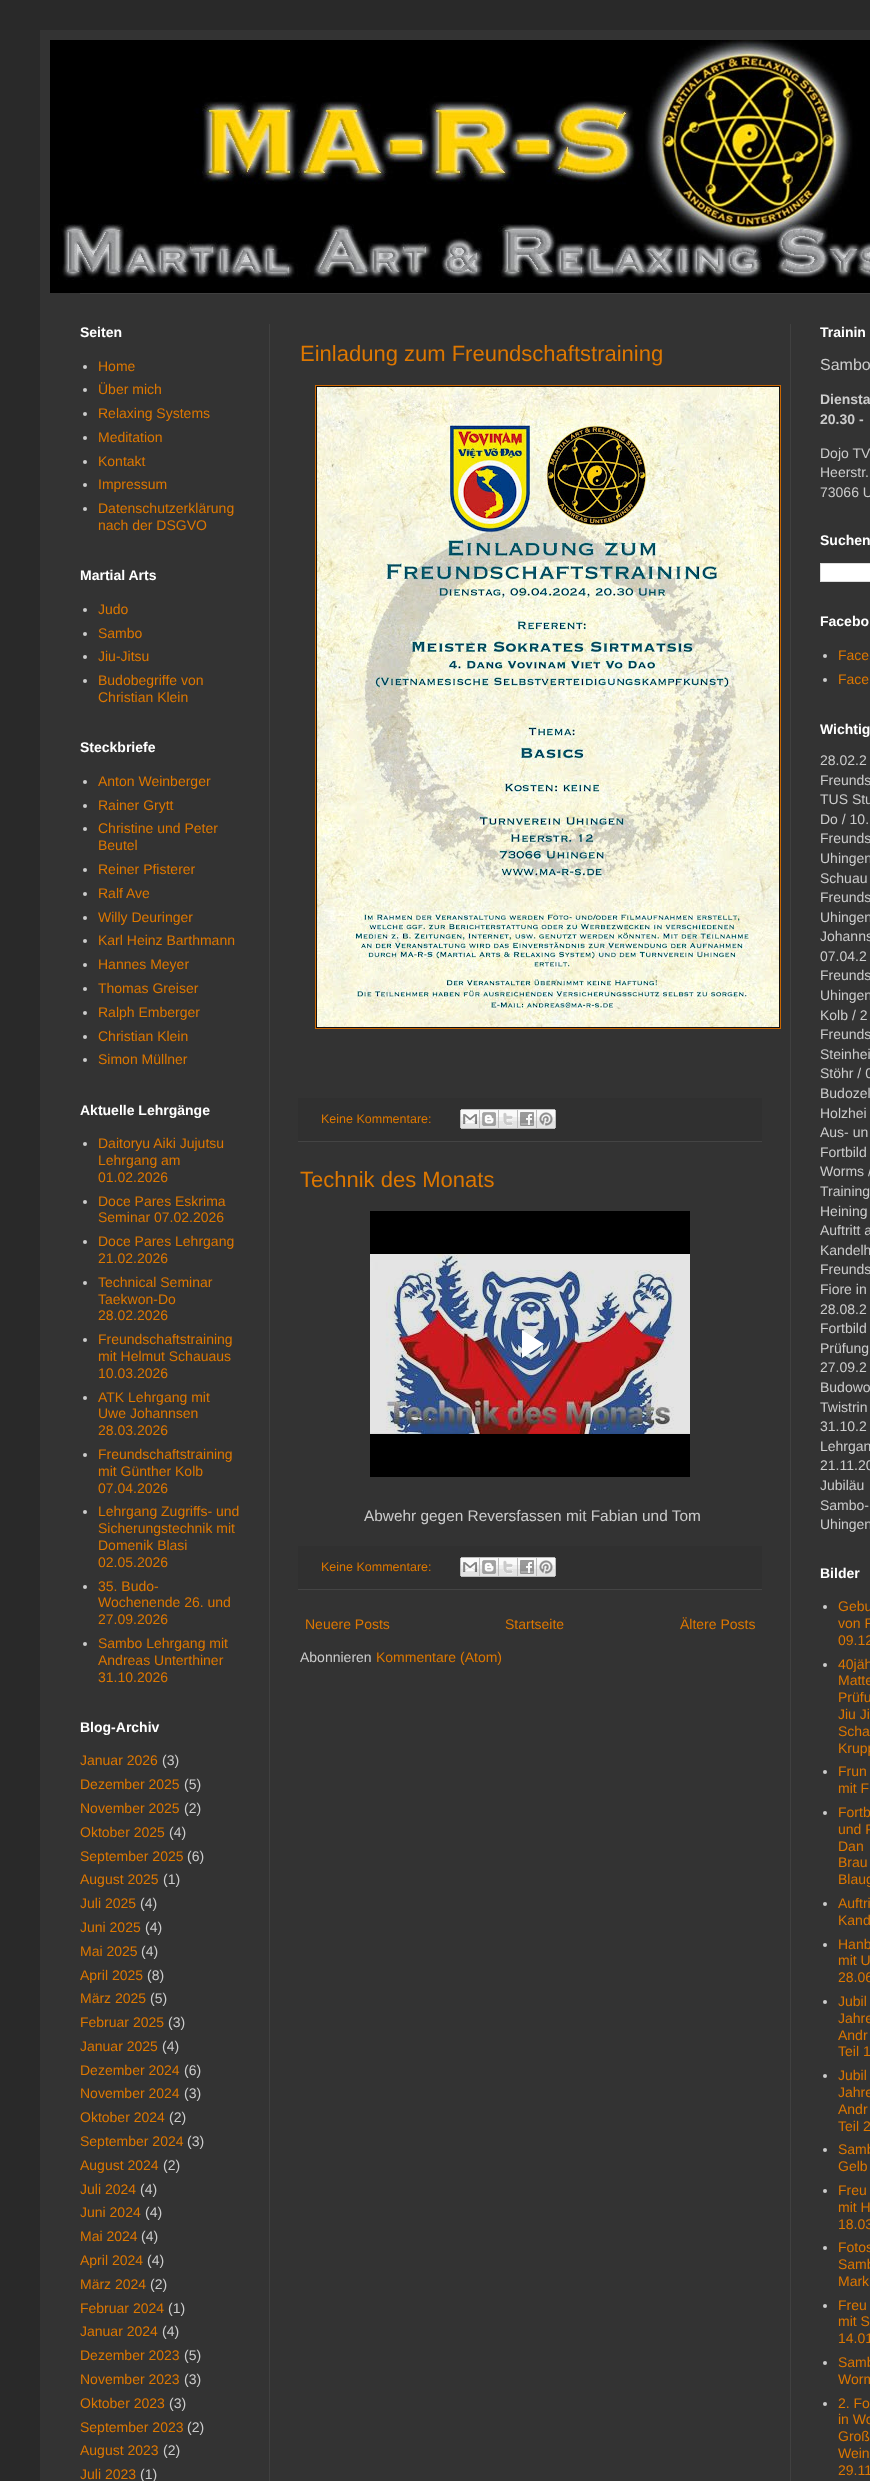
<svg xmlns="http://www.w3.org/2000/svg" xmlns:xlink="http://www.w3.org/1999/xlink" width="870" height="2481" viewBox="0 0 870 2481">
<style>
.cls-1{font:bold 14px Liberation Sans;fill:#ffffff}
.cls-2{font:14px Liberation Sans;fill:#dd7700}
.cls-3{font:14px Liberation Sans;fill:#cccccc}
.cls-4{font:22px Liberation Sans;fill:#dd7700}
.cls-5{font:12.5px Liberation Sans;fill:#dd7700}
.cls-6{font:15.4px Liberation Sans;fill:#cccccc}
.cls-7{font:16px Liberation Sans;fill:#cccccc}
.cls-8{font:bold 14px Liberation Sans;fill:#cccccc}
</style>
<rect width="100%" height="100%" fill="#292929"/>
<rect fill="#333333" x="40" y="30" width="830" height="2451"/>
<image xlink:href="image0.png" x="50" y="40" width="820" height="253"/>
<rect fill="#404040" x="80" y="293" width="790" height="1"/>
<rect fill="#404040" x="269" y="324" width="1" height="2157"/>
<rect fill="#404040" x="790" y="324" width="1" height="2157"/>
<circle fill="#cccccc" cx="85" cy="367" r="2"/>
<circle fill="#cccccc" cx="85" cy="390" r="2"/>
<circle fill="#cccccc" cx="85" cy="414" r="2"/>
<circle fill="#cccccc" cx="85" cy="438" r="2"/>
<circle fill="#cccccc" cx="85" cy="462" r="2"/>
<circle fill="#cccccc" cx="85" cy="485" r="2"/>
<circle fill="#cccccc" cx="85" cy="509" r="2"/>
<circle fill="#cccccc" cx="85" cy="610" r="2"/>
<circle fill="#cccccc" cx="85" cy="634" r="2"/>
<circle fill="#cccccc" cx="85" cy="657" r="2"/>
<circle fill="#cccccc" cx="85" cy="681" r="2"/>
<circle fill="#cccccc" cx="85" cy="782" r="2"/>
<circle fill="#cccccc" cx="85" cy="806" r="2"/>
<circle fill="#cccccc" cx="85" cy="829" r="2"/>
<circle fill="#cccccc" cx="85" cy="870" r="2"/>
<circle fill="#cccccc" cx="85" cy="894" r="2"/>
<circle fill="#cccccc" cx="85" cy="918" r="2"/>
<circle fill="#cccccc" cx="85" cy="941" r="2"/>
<circle fill="#cccccc" cx="85" cy="965" r="2"/>
<circle fill="#cccccc" cx="85" cy="989" r="2"/>
<circle fill="#cccccc" cx="85" cy="1013" r="2"/>
<circle fill="#cccccc" cx="85" cy="1037" r="2"/>
<circle fill="#cccccc" cx="85" cy="1060" r="2"/>
<circle fill="#cccccc" cx="85" cy="1144" r="2"/>
<circle fill="#cccccc" cx="85" cy="1202" r="2"/>
<circle fill="#cccccc" cx="85" cy="1242" r="2"/>
<circle fill="#cccccc" cx="85" cy="1283" r="2"/>
<circle fill="#cccccc" cx="85" cy="1340" r="2"/>
<circle fill="#cccccc" cx="85" cy="1398" r="2"/>
<circle fill="#cccccc" cx="85" cy="1455" r="2"/>
<circle fill="#cccccc" cx="85" cy="1512" r="2"/>
<circle fill="#cccccc" cx="85" cy="1587" r="2"/>
<circle fill="#cccccc" cx="85" cy="1644" r="2"/>
<rect fill="#111111" stroke="#cc6600" x="315.5" y="385.5" width="465" height="643"/>
<image xlink:href="image1.png" x="317" y="387" width="462" height="640"/>
<rect fill="#303030" x="298" y="1098" width="464" height="43"/>
<rect fill="#444444" x="298" y="1141" width="464" height="1"/>
<image xlink:href="image2.png" x="460" y="1109" width="20" height="20"/>
<image xlink:href="image3.png" x="480" y="1109" width="19" height="20"/>
<image xlink:href="image4.png" x="499" y="1109" width="19" height="20"/>
<image xlink:href="image5.png" x="518" y="1109" width="19" height="20"/>
<image xlink:href="image6.png" x="537" y="1109" width="19" height="20"/>
<image xlink:href="image7.png" x="370" y="1211" width="320" height="266"/>
<rect fill="#303030" x="298" y="1546" width="464" height="43"/>
<rect fill="#444444" x="298" y="1589" width="464" height="1"/>
<image xlink:href="image2.png" x="460" y="1557" width="20" height="20"/>
<image xlink:href="image3.png" x="480" y="1557" width="19" height="20"/>
<image xlink:href="image4.png" x="499" y="1557" width="19" height="20"/>
<image xlink:href="image5.png" x="518" y="1557" width="19" height="20"/>
<image xlink:href="image6.png" x="537" y="1557" width="19" height="20"/>
<rect fill="#ffffff" stroke="#dddddd" x="820.5" y="563.5" width="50" height="18"/>
<circle fill="#cccccc" cx="825" cy="656" r="2"/>
<circle fill="#cccccc" cx="825" cy="680" r="2"/>
<circle fill="#cccccc" cx="825" cy="1607" r="2"/>
<circle fill="#cccccc" cx="825" cy="1665" r="2"/>
<circle fill="#cccccc" cx="825" cy="1772" r="2"/>
<circle fill="#cccccc" cx="825" cy="1813" r="2"/>
<circle fill="#cccccc" cx="825" cy="1904" r="2"/>
<circle fill="#cccccc" cx="825" cy="1945" r="2"/>
<circle fill="#cccccc" cx="825" cy="2002" r="2"/>
<circle fill="#cccccc" cx="825" cy="2076" r="2"/>
<circle fill="#cccccc" cx="825" cy="2150" r="2"/>
<circle fill="#cccccc" cx="825" cy="2191" r="2"/>
<circle fill="#cccccc" cx="825" cy="2248" r="2"/>
<circle fill="#cccccc" cx="825" cy="2306" r="2"/>
<circle fill="#cccccc" cx="825" cy="2363" r="2"/>
<circle fill="#cccccc" cx="825" cy="2404" r="2"/>
<text class="cls-1" x="80" y="337">Seiten</text>
<text class="cls-2"><tspan x="98" y="371">Home</tspan><tspan x="98" y="394">Über mich</tspan><tspan x="98" y="418">Relaxing Systems</tspan><tspan x="98" y="442">Meditation</tspan><tspan x="98" y="466">Kontakt</tspan><tspan x="98" y="489">Impressum</tspan><tspan x="98" y="513">Datenschutzerklärung</tspan><tspan x="98" y="530">nach der DSGVO</tspan></text>
<text class="cls-1" x="80" y="580">Martial Arts</text>
<text class="cls-2"><tspan x="98" y="614">Judo</tspan><tspan x="98" y="638">Sambo</tspan><tspan x="98" y="661">Jiu-Jitsu</tspan><tspan x="98" y="685">Budobegriffe von</tspan><tspan x="98" y="702">Christian Klein</tspan></text>
<text class="cls-1" x="80" y="752">Steckbriefe</text>
<text class="cls-2"><tspan x="98" y="786">Anton Weinberger</tspan><tspan x="98" y="810">Rainer Grytt</tspan><tspan x="98" y="833">Christine und Peter</tspan><tspan x="98" y="850">Beutel</tspan><tspan x="98" y="874">Reiner Pfisterer</tspan><tspan x="98" y="898">Ralf Ave</tspan><tspan x="98" y="922">Willy Deuringer</tspan><tspan x="98" y="945">Karl Heinz Barthmann</tspan><tspan x="98" y="969">Hannes Meyer</tspan><tspan x="98" y="993">Thomas Greiser</tspan><tspan x="98" y="1017">Ralph Emberger</tspan><tspan x="98" y="1041">Christian Klein</tspan><tspan x="98" y="1064">Simon Müllner</tspan></text>
<text class="cls-1" x="80" y="1115">Aktuelle Lehrgänge</text>
<text class="cls-2"><tspan x="98" y="1148">Daitoryu Aiki Jujutsu</tspan><tspan x="98" y="1165">Lehrgang am</tspan><tspan x="98" y="1182">01.02.2026</tspan><tspan x="98" y="1206">Doce Pares Eskrima</tspan><tspan x="98" y="1222">Seminar 07.02.2026</tspan><tspan x="98" y="1246">Doce Pares Lehrgang</tspan><tspan x="98" y="1263">21.02.2026</tspan><tspan x="98" y="1287">Technical Seminar</tspan><tspan x="98" y="1304">Taekwon-Do</tspan><tspan x="98" y="1320">28.02.2026</tspan><tspan x="98" y="1344">Freundschaftstraining</tspan><tspan x="98" y="1361">mit Helmut Schauaus</tspan><tspan x="98" y="1378">10.03.2026</tspan><tspan x="98" y="1402">ATK Lehrgang mit</tspan><tspan x="98" y="1418">Uwe Johannsen</tspan><tspan x="98" y="1435">28.03.2026</tspan><tspan x="98" y="1459">Freundschaftstraining</tspan><tspan x="98" y="1476">mit Günther Kolb</tspan><tspan x="98" y="1493">07.04.2026</tspan><tspan x="98" y="1516">Lehrgang Zugriffs- und</tspan><tspan x="98" y="1533">Sicherungstechnik mit</tspan><tspan x="98" y="1550">Domenik Blasi</tspan><tspan x="98" y="1567">02.05.2026</tspan><tspan x="98" y="1591">35. Budo-</tspan><tspan x="98" y="1607">Wochenende 26. und</tspan><tspan x="98" y="1624">27.09.2026</tspan><tspan x="98" y="1648">Sambo Lehrgang mit</tspan><tspan x="98" y="1665">Andreas Unterthiner</tspan><tspan x="98" y="1682">31.10.2026</tspan></text>
<text class="cls-1" x="80" y="1732">Blog-Archiv</text>
<text class="cls-2" x="80" y="1765">Januar 2026</text>
<text class="cls-3" x="162" y="1765">(3)</text>
<text class="cls-2" x="80" y="1789">Dezember 2025</text>
<text class="cls-3" x="184" y="1789">(5)</text>
<text class="cls-2" x="80" y="1813">November 2025</text>
<text class="cls-3" x="184" y="1813">(2)</text>
<text class="cls-2" x="80" y="1837">Oktober 2025</text>
<text class="cls-3" x="169" y="1837">(4)</text>
<text class="cls-2" x="80" y="1861">September 2025</text>
<text class="cls-3" x="187" y="1861">(6)</text>
<text class="cls-2" x="80" y="1884">August 2025</text>
<text class="cls-3" x="163" y="1884">(1)</text>
<text class="cls-2" x="80" y="1908">Juli 2025</text>
<text class="cls-3" x="140" y="1908">(4)</text>
<text class="cls-2" x="80" y="1932">Juni 2025</text>
<text class="cls-3" x="145" y="1932">(4)</text>
<text class="cls-2" x="80" y="1956">Mai 2025</text>
<text class="cls-3" x="141" y="1956">(4)</text>
<text class="cls-2" x="80" y="1980">April 2025</text>
<text class="cls-3" x="147" y="1980">(8)</text>
<text class="cls-2" x="80" y="2003">März 2025</text>
<text class="cls-3" x="150" y="2003">(5)</text>
<text class="cls-2" x="80" y="2027">Februar 2025</text>
<text class="cls-3" x="168" y="2027">(3)</text>
<text class="cls-2" x="80" y="2051">Januar 2025</text>
<text class="cls-3" x="162" y="2051">(4)</text>
<text class="cls-2" x="80" y="2075">Dezember 2024</text>
<text class="cls-3" x="184" y="2075">(6)</text>
<text class="cls-2" x="80" y="2098">November 2024</text>
<text class="cls-3" x="184" y="2098">(3)</text>
<text class="cls-2" x="80" y="2122">Oktober 2024</text>
<text class="cls-3" x="169" y="2122">(2)</text>
<text class="cls-2" x="80" y="2146">September 2024</text>
<text class="cls-3" x="187" y="2146">(3)</text>
<text class="cls-2" x="80" y="2170">August 2024</text>
<text class="cls-3" x="163" y="2170">(2)</text>
<text class="cls-2" x="80" y="2194">Juli 2024</text>
<text class="cls-3" x="140" y="2194">(4)</text>
<text class="cls-2" x="80" y="2217">Juni 2024</text>
<text class="cls-3" x="145" y="2217">(4)</text>
<text class="cls-2" x="80" y="2241">Mai 2024</text>
<text class="cls-3" x="141" y="2241">(4)</text>
<text class="cls-2" x="80" y="2265">April 2024</text>
<text class="cls-3" x="147" y="2265">(4)</text>
<text class="cls-2" x="80" y="2289">März 2024</text>
<text class="cls-3" x="150" y="2289">(2)</text>
<text class="cls-2" x="80" y="2313">Februar 2024</text>
<text class="cls-3" x="168" y="2313">(1)</text>
<text class="cls-2" x="80" y="2336">Januar 2024</text>
<text class="cls-3" x="162" y="2336">(4)</text>
<text class="cls-2" x="80" y="2360">Dezember 2023</text>
<text class="cls-3" x="184" y="2360">(5)</text>
<text class="cls-2" x="80" y="2384">November 2023</text>
<text class="cls-3" x="184" y="2384">(3)</text>
<text class="cls-2" x="80" y="2408">Oktober 2023</text>
<text class="cls-3" x="169" y="2408">(3)</text>
<text class="cls-2" x="80" y="2432">September 2023</text>
<text class="cls-3" x="187" y="2432">(2)</text>
<text class="cls-2" x="80" y="2455">August 2023</text>
<text class="cls-3" x="163" y="2455">(2)</text>
<text class="cls-2" x="80" y="2479">Juli 2023</text>
<text class="cls-3" x="140" y="2479">(1)</text>
<text class="cls-4" x="300" y="361">Einladung zum Freundschaftstraining</text>
<text class="cls-5" x="321" y="1123">Keine Kommentare:</text>
<text class="cls-4" x="300" y="1187">Technik des Monats</text>
<text class="cls-6" x="364" y="1521">Abwehr gegen Reversfassen mit Fabian und Tom</text>
<text class="cls-5" x="321" y="1571">Keine Kommentare:</text>
<text class="cls-2" x="305" y="1629">Neuere Posts</text>
<text class="cls-2" x="505" y="1629">Startseite</text>
<text class="cls-2" x="680" y="1629">Ältere Posts</text>
<text class="cls-3" x="300" y="1662">Abonnieren</text>
<text class="cls-2" x="376" y="1662">Kommentare (Atom)</text>
<text class="cls-1" x="820" y="337">Trainin</text>
<text class="cls-7" x="820" y="370">Sambo</text>
<text class="cls-8"><tspan x="820" y="404">Diensta</tspan><tspan x="820" y="424">20.30 -</tspan></text>
<text class="cls-3"><tspan x="820" y="458">Dojo TV</tspan><tspan x="820" y="477">Heerstr.</tspan><tspan x="820" y="497">73066 U</tspan></text>
<text class="cls-1" x="820" y="545">Suchen</text>
<text class="cls-1" x="820" y="626">Facebo</text>
<text class="cls-2"><tspan x="838" y="660">Face</tspan><tspan x="838" y="684">Face</tspan></text>
<text class="cls-1" x="820" y="734">Wichtig</text>
<text class="cls-3"><tspan x="820" y="765">28.02.2</tspan><tspan x="820" y="785">Freunds</tspan><tspan x="820" y="804">TUS Stu</tspan><tspan x="820" y="824">Do / 10.</tspan><tspan x="820" y="843">Freunds</tspan><tspan x="820" y="863">Uhingen</tspan><tspan x="820" y="883">Schuau</tspan><tspan x="820" y="902">Freunds</tspan><tspan x="820" y="922">Uhingen</tspan><tspan x="820" y="941">Johanns</tspan><tspan x="820" y="961">07.04.2</tspan><tspan x="820" y="980">Freunds</tspan><tspan x="820" y="1000">Uhingen</tspan><tspan x="820" y="1020">Kolb / 2</tspan><tspan x="820" y="1039">Freunds</tspan><tspan x="820" y="1059">Steinhei</tspan><tspan x="820" y="1078">Stöhr / 0</tspan><tspan x="820" y="1098">Budozel</tspan><tspan x="820" y="1118">Holzhei</tspan><tspan x="820" y="1137">Aus- un</tspan><tspan x="820" y="1157">Fortbild</tspan><tspan x="820" y="1176">Worms /</tspan><tspan x="820" y="1196">Training</tspan><tspan x="820" y="1216">Heining</tspan><tspan x="820" y="1235">Auftritt a</tspan><tspan x="820" y="1255">Kandelh</tspan><tspan x="820" y="1274">Freunds</tspan><tspan x="820" y="1294">Fiore in</tspan><tspan x="820" y="1314">28.08.2</tspan><tspan x="820" y="1333">Fortbild</tspan><tspan x="820" y="1353">Prüfung</tspan><tspan x="820" y="1372">27.09.2</tspan><tspan x="820" y="1392">Budowo</tspan><tspan x="820" y="1412">Twistrin</tspan><tspan x="820" y="1431">31.10.2</tspan><tspan x="820" y="1451">Lehrgan</tspan><tspan x="820" y="1470">21.11.20</tspan><tspan x="820" y="1490">Jubiläu</tspan><tspan x="820" y="1510">Sambo-</tspan><tspan x="820" y="1529">Uhingen</tspan></text>
<text class="cls-1" x="820" y="1578">Bilder</text>
<text class="cls-2"><tspan x="838" y="1611">Gebu</tspan><tspan x="838" y="1628">von F</tspan><tspan x="838" y="1645">09.12</tspan><tspan x="838" y="1669">40jäh</tspan><tspan x="838" y="1685">Matte</tspan><tspan x="838" y="1702">Prüfu</tspan><tspan x="838" y="1719">Jiu Ji</tspan><tspan x="838" y="1736">Scha</tspan><tspan x="838" y="1753">Krupp</tspan><tspan x="838" y="1776">Frun</tspan><tspan x="838" y="1793">mit F</tspan><tspan x="838" y="1817">Fortb</tspan><tspan x="838" y="1834">und P</tspan><tspan x="838" y="1851">Dan</tspan><tspan x="838" y="1867">Brau</tspan><tspan x="838" y="1884">Blaug</tspan><tspan x="838" y="1908">Auftri</tspan><tspan x="838" y="1925">Kand</tspan><tspan x="838" y="1949">Hanb</tspan><tspan x="838" y="1965">mit U</tspan><tspan x="838" y="1982">28.06</tspan><tspan x="838" y="2006">Jubil</tspan><tspan x="838" y="2023">Jahre</tspan><tspan x="838" y="2040">Andr</tspan><tspan x="838" y="2056">Teil 1</tspan><tspan x="838" y="2080">Jubil</tspan><tspan x="838" y="2097">Jahre</tspan><tspan x="838" y="2114">Andr</tspan><tspan x="838" y="2131">Teil 2</tspan><tspan x="838" y="2154">Samb</tspan><tspan x="838" y="2171">Gelb</tspan><tspan x="838" y="2195">Freu</tspan><tspan x="838" y="2212">mit H</tspan><tspan x="838" y="2229">18.03</tspan><tspan x="838" y="2252">Fotos</tspan><tspan x="838" y="2269">Samb</tspan><tspan x="838" y="2286">Mark</tspan><tspan x="838" y="2310">Freu</tspan><tspan x="838" y="2326">mit S</tspan><tspan x="838" y="2343">14.01</tspan><tspan x="838" y="2367">Samb</tspan><tspan x="838" y="2384">Worm</tspan><tspan x="838" y="2408">2. Fo</tspan><tspan x="838" y="2424">in Wo</tspan><tspan x="838" y="2441">Groß</tspan><tspan x="838" y="2458">Wein</tspan><tspan x="838" y="2475">29.11</tspan></text>
</svg>
